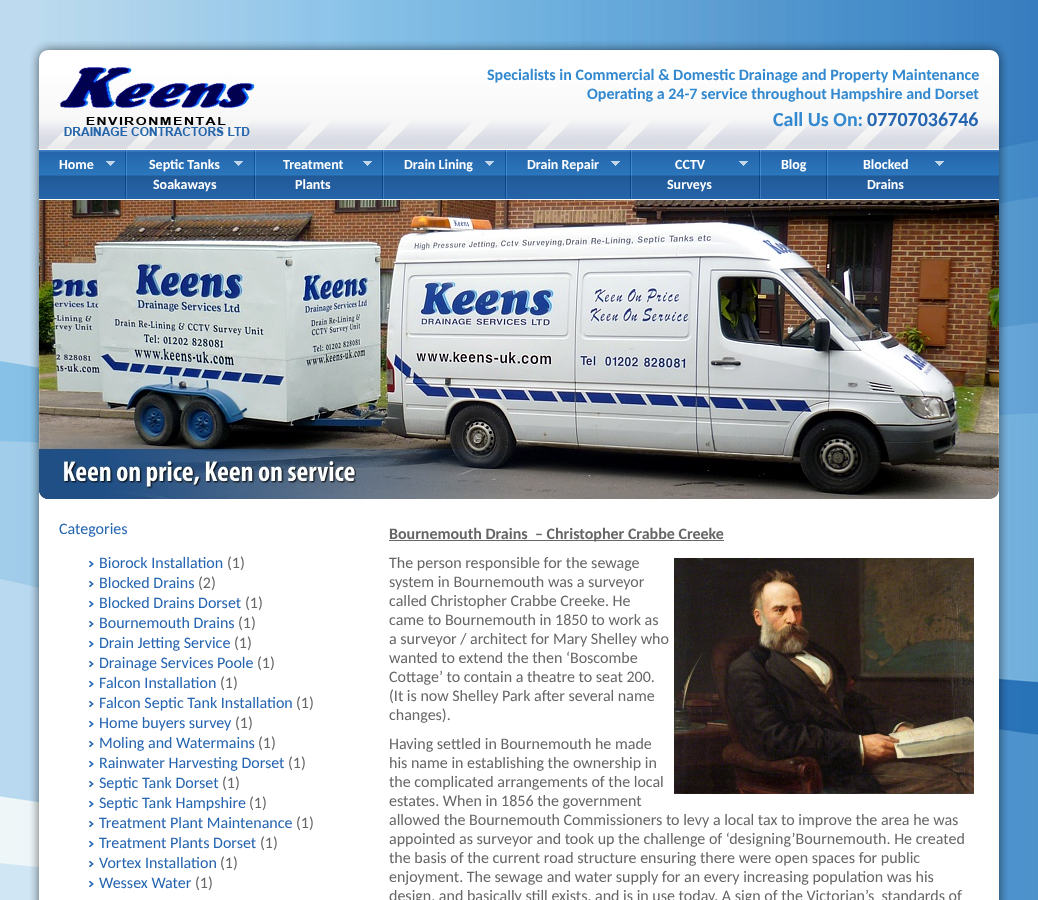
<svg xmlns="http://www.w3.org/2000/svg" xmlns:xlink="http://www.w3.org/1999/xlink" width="1038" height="900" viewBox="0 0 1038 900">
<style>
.cls-1{font:bold 16px Carlito;fill:#3289cf}
.cls-2{font:bold 20px Carlito;fill:#3289cf}
.cls-3{font:bold 20px Carlito;fill:#2464b0}
.cls-4{font:bold 14px Carlito;fill:#ffffff}
.cls-5{font:16px Carlito;fill:#2464b0}
.cls-6{font:16px Carlito;fill:#666666}
.cls-7{font:bold 16px Carlito;fill:#666666}
</style>
<rect width="100%" height="100%" fill="#ffffff"/>
<image xlink:href="image0.png" x="0" y="0" width="1038" height="900"/>
<image xlink:href="image1.png" x="30" y="41" width="978" height="109"/>
<image xlink:href="image2.png" x="60" y="67" width="195" height="69"/>
<image xlink:href="image3.png" x="30" y="150" width="978" height="750"/>
<image xlink:href="image4.png" x="39" y="150" width="960" height="49"/>
<image xlink:href="image5.png" x="125" y="150" width="2" height="49"/>
<image xlink:href="image6.png" x="106" y="161" width="9" height="5"/>
<image xlink:href="image7.png" x="106" y="161" width="9" height="5"/>
<image xlink:href="image5.png" x="254" y="150" width="2" height="49"/>
<image xlink:href="image6.png" x="234" y="161" width="9" height="5"/>
<image xlink:href="image7.png" x="234" y="161" width="9" height="5"/>
<image xlink:href="image5.png" x="382" y="150" width="2" height="49"/>
<image xlink:href="image6.png" x="363" y="161" width="9" height="5"/>
<image xlink:href="image7.png" x="363" y="161" width="9" height="5"/>
<image xlink:href="image5.png" x="505" y="150" width="2" height="49"/>
<image xlink:href="image6.png" x="485" y="161" width="9" height="5"/>
<image xlink:href="image7.png" x="485" y="161" width="9" height="5"/>
<image xlink:href="image5.png" x="630" y="150" width="2" height="49"/>
<image xlink:href="image6.png" x="611" y="161" width="9" height="5"/>
<image xlink:href="image7.png" x="611" y="161" width="9" height="5"/>
<image xlink:href="image5.png" x="759" y="150" width="2" height="49"/>
<image xlink:href="image6.png" x="739" y="161" width="9" height="5"/>
<image xlink:href="image7.png" x="739" y="161" width="9" height="5"/>
<image xlink:href="image5.png" x="826" y="150" width="2" height="49"/>
<image xlink:href="image6.png" x="935" y="161" width="9" height="5"/>
<image xlink:href="image7.png" x="935" y="161" width="9" height="5"/>
<image xlink:href="image8.png" x="39" y="199" width="960" height="300"/>
<image xlink:href="image9.png" x="89" y="560" width="5" height="8"/>
<image xlink:href="image9.png" x="89" y="580" width="5" height="8"/>
<image xlink:href="image9.png" x="89" y="600" width="5" height="8"/>
<image xlink:href="image9.png" x="89" y="620" width="5" height="8"/>
<image xlink:href="image9.png" x="89" y="640" width="5" height="8"/>
<image xlink:href="image9.png" x="89" y="660" width="5" height="8"/>
<image xlink:href="image9.png" x="89" y="680" width="5" height="8"/>
<image xlink:href="image9.png" x="89" y="700" width="5" height="8"/>
<image xlink:href="image9.png" x="89" y="720" width="5" height="8"/>
<image xlink:href="image9.png" x="89" y="740" width="5" height="8"/>
<image xlink:href="image9.png" x="89" y="760" width="5" height="8"/>
<image xlink:href="image9.png" x="89" y="780" width="5" height="8"/>
<image xlink:href="image9.png" x="89" y="800" width="5" height="8"/>
<image xlink:href="image9.png" x="89" y="820" width="5" height="8"/>
<image xlink:href="image9.png" x="89" y="840" width="5" height="8"/>
<image xlink:href="image9.png" x="89" y="860" width="5" height="8"/>
<image xlink:href="image9.png" x="89" y="880" width="5" height="8"/>
<rect fill="#666666" x="389" y="540" width="335" height="1"/>
<image xlink:href="image10.png" x="674" y="558" width="300" height="236"/>
<text class="cls-1" x="487" y="80">Specialists in Commercial &amp; Domestic Drainage and Property Maintenance</text>
<text class="cls-1" x="587" y="99">Operating a 24-7 service throughout Hampshire and Dorset</text>
<text class="cls-2" x="773" y="126">Call Us On:</text>
<text class="cls-3" x="867" y="126">07707036746</text>
<text class="cls-4" x="59" y="169">Home</text>
<text class="cls-4" x="149" y="169">Septic Tanks</text>
<text class="cls-4" x="153" y="189">Soakaways</text>
<text class="cls-4" x="283" y="169">Treatment</text>
<text class="cls-4" x="295" y="189">Plants</text>
<text class="cls-4" x="404" y="169">Drain Lining</text>
<text class="cls-4" x="527" y="169">Drain Repair</text>
<text class="cls-4" x="675" y="169">CCTV</text>
<text class="cls-4" x="667" y="189">Surveys</text>
<text class="cls-4" x="781" y="169">Blog</text>
<text class="cls-4" x="863" y="169">Blocked</text>
<text class="cls-4" x="867" y="189">Drains</text>
<text class="cls-5" x="59" y="534">Categories</text>
<text class="cls-5" x="99" y="568">Biorock Installation</text>
<text class="cls-6" x="227" y="568">(1)</text>
<text class="cls-5" x="99" y="588">Blocked Drains</text>
<text class="cls-6" x="198" y="588">(2)</text>
<text class="cls-5" x="99" y="608">Blocked Drains Dorset</text>
<text class="cls-6" x="245" y="608">(1)</text>
<text class="cls-5" x="99" y="628">Bournemouth Drains</text>
<text class="cls-6" x="238" y="628">(1)</text>
<text class="cls-5" x="99" y="648">Drain Jetting Service</text>
<text class="cls-6" x="234" y="648">(1)</text>
<text class="cls-5" x="99" y="668">Drainage Services Poole</text>
<text class="cls-6" x="257" y="668">(1)</text>
<text class="cls-5" x="99" y="688">Falcon Installation</text>
<text class="cls-6" x="220" y="688">(1)</text>
<text class="cls-5" x="99" y="708">Falcon Septic Tank Installation</text>
<text class="cls-6" x="296" y="708">(1)</text>
<text class="cls-5" x="99" y="728">Home buyers survey</text>
<text class="cls-6" x="235" y="728">(1)</text>
<text class="cls-5" x="99" y="748">Moling and Watermains</text>
<text class="cls-6" x="258" y="748">(1)</text>
<text class="cls-5" x="99" y="768">Rainwater Harvesting Dorset</text>
<text class="cls-6" x="288" y="768">(1)</text>
<text class="cls-5" x="99" y="788">Septic Tank Dorset</text>
<text class="cls-6" x="222" y="788">(1)</text>
<text class="cls-5" x="99" y="808">Septic Tank Hampshire</text>
<text class="cls-6" x="249" y="808">(1)</text>
<text class="cls-5" x="99" y="828">Treatment Plant Maintenance</text>
<text class="cls-6" x="296" y="828">(1)</text>
<text class="cls-5" x="99" y="848">Treatment Plants Dorset</text>
<text class="cls-6" x="260" y="848">(1)</text>
<text class="cls-5" x="99" y="868">Vortex Installation</text>
<text class="cls-6" x="220" y="868">(1)</text>
<text class="cls-5" x="99" y="888">Wessex Water</text>
<text class="cls-6" x="195" y="888">(1)</text>
<text class="cls-7" xml:space="preserve" x="389" y="539">Bournemouth Drains  – Christopher Crabbe Creeke</text>
<text class="cls-6" xml:space="preserve"><tspan x="389" y="568">The person responsible for the sewage</tspan><tspan x="389" y="587">system in Bournemouth was a surveyor</tspan><tspan x="389" y="606">called Christopher Crabbe Creeke. He</tspan><tspan x="389" y="625">came to Bournemouth in 1850 to work as</tspan><tspan x="389" y="644">a surveyor / architect for Mary Shelley who</tspan><tspan x="389" y="663">wanted to extend the then ‘Boscombe</tspan><tspan x="389" y="682">Cottage’ to contain a theatre to seat 200.</tspan><tspan x="389" y="701">(It is now Shelley Park after several name</tspan><tspan x="389" y="720">changes).</tspan><tspan x="389" y="749">Having settled in Bournemouth he made</tspan><tspan x="389" y="768">his name in establishing the ownership in</tspan><tspan x="389" y="787">the complicated arrangements of the local</tspan><tspan x="389" y="806">estates. When in 1856 the government</tspan><tspan x="389" y="825">allowed the Bournemouth Commissioners to levy a local tax to improve the area he was</tspan><tspan x="389" y="844">appointed as surveyor and took up the challenge of ‘designing’Bournemouth. He created</tspan><tspan x="389" y="863">the basis of the current road structure ensuring there were open spaces for public</tspan><tspan x="389" y="882">enjoyment. The sewage and water supply for an every increasing population was his</tspan><tspan x="389" y="901">design, and basically still exists, and is in use today. A sign of the Victorian’s  standards of</tspan></text>
</svg>
